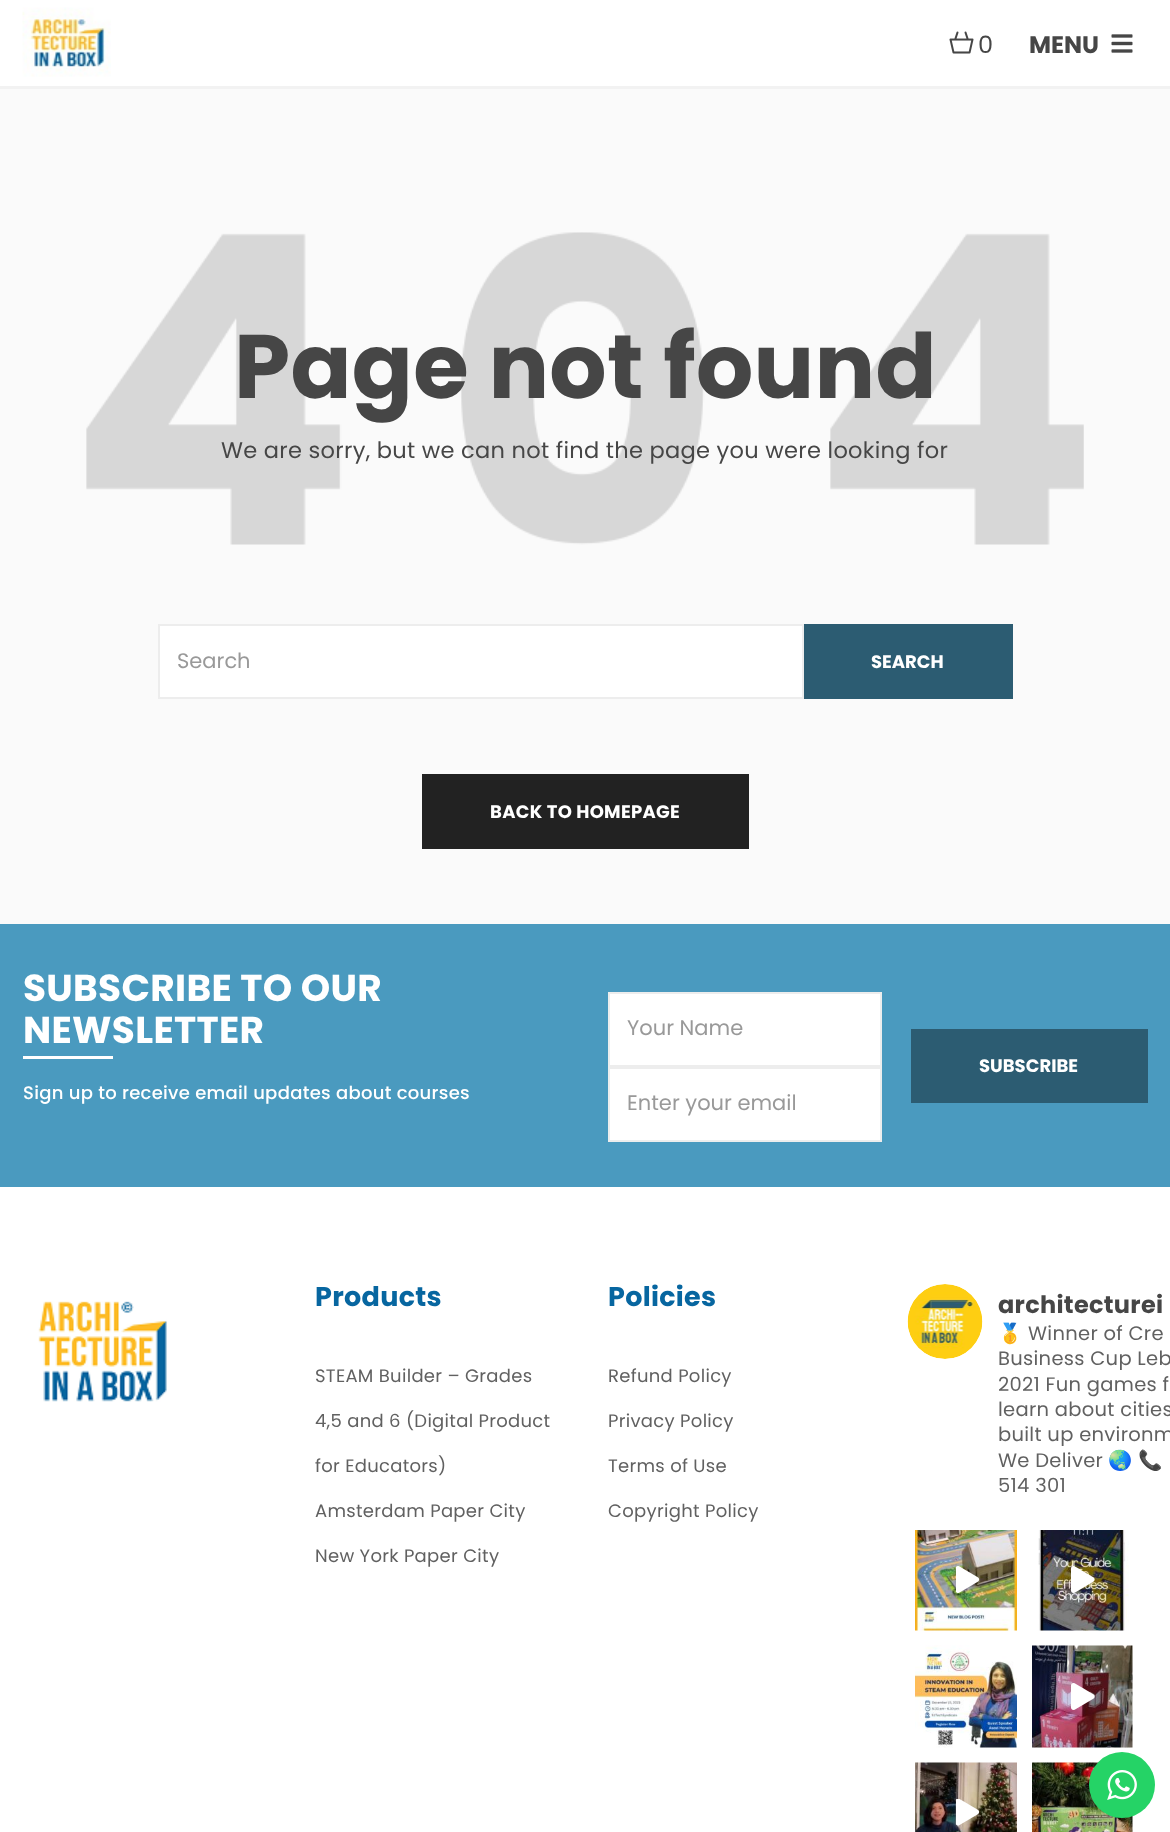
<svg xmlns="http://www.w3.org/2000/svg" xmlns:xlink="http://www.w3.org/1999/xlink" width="1170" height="1832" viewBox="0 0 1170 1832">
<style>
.cls-1{font:24px Poppins;fill:#464646}
.cls-2{font:bold 24px Poppins;fill:#464646}
.cls-3{font:bold 90px Poppins;letter-spacing:0.3px;fill:#464646}
.cls-4{font:22.5px Poppins;letter-spacing:0.3px;fill:#464646}
.cls-5{font:21px Poppins;fill:#999999}
.cls-6{font:bold 18px Poppins;fill:#ffffff}
.cls-7{font:bold 18px Poppins;letter-spacing:0.3px;fill:#ffffff}
.cls-8{font:bold 37.5px Poppins;letter-spacing:0.3px;fill:#ffffff}
.cls-9{font:500 18px Poppins;letter-spacing:0.3px;fill:#ffffff}
.cls-10{font:bold 27px Poppins;letter-spacing:0.3px;fill:#0766a0}
.cls-11{font:18px Poppins;letter-spacing:0.3px;fill:#616161}
.cls-12{font:bold 24px Poppins;letter-spacing:0.3px;fill:#464646}
.cls-13{font:19.5px Noto Color Emoji;letter-spacing:0.3px;fill:#616161}
.cls-14{font:19.5px Poppins;letter-spacing:0.3px;fill:#616161}
</style>
<rect width="100%" height="100%" fill="#ffffff"/>
<rect fill="#f2f2f2" x="0" y="86" width="1170" height="3"/>
<image xlink:href="image0.png" x="22" y="7" width="89" height="70"/>
<image xlink:href="image1.png" x="949" y="31" width="25" height="23"/>
<image xlink:href="image2.png" x="1111" y="34" width="22" height="19"/>
<rect fill="#fafafa" x="0" y="89" width="1170" height="835"/>
<image xlink:href="image3.png" x="86" y="232" width="998" height="313"/>
<rect fill="#ffffff" stroke="#ededed" stroke-width="2" x="159" y="625" width="644" height="73"/>
<rect fill="#2c5c72" x="804" y="624" width="209" height="75"/>
<rect fill="#222222" x="422" y="774" width="327" height="75"/>
<rect fill="#4a9abf" x="0" y="924" width="1170" height="263"/>
<rect fill="#ffffff" x="23" y="1056" width="90" height="3"/>
<rect fill="#ffffff" stroke="#ededed" stroke-width="2" x="609" y="993" width="272" height="73"/>
<rect fill="#2c5c72" x="911" y="1029" width="237" height="74"/>
<rect fill="#ffffff" stroke="#ededed" stroke-width="2" x="609" y="1068" width="272" height="73"/>
<image xlink:href="image4.png" x="38" y="1301" width="129" height="101"/>
<image xlink:href="image5.png" x="907" y="1284" width="76" height="75"/>
<image xlink:href="image6.png" x="915" y="1530" width="102" height="101"/>
<image xlink:href="image7.png" x="956" y="1566" width="24" height="27"/>
<image xlink:href="image8.png" x="1038" y="1530" width="91" height="101"/>
<image xlink:href="image9.png" x="1071" y="1566" width="24" height="27"/>
<image xlink:href="image10.png" x="915" y="1645" width="102" height="103"/>
<image xlink:href="image11.png" x="1032" y="1645" width="101" height="103"/>
<image xlink:href="image12.png" x="1071" y="1683" width="24" height="27"/>
<image xlink:href="image13.png" x="915" y="1762" width="102" height="70"/>
<image xlink:href="image14.png" x="956" y="1799" width="24" height="27"/>
<image xlink:href="image15.png" x="1032" y="1762" width="101" height="70"/>
<circle fill="#25d366" cx="1122" cy="1785" r="33"/>
<image xlink:href="image16.png" x="1107" y="1770" width="30" height="30"/>
<text class="cls-1" x="978" y="53">0</text>
<text class="cls-2" x="1029" y="53">MENU</text>
<text class="cls-3" x="234" y="398">Page not found</text>
<text class="cls-4" x="221" y="458">We are sorry, but we can not find the page you were looking for</text>
<text class="cls-5" x="177" y="668">Search</text>
<text class="cls-6" x="871" y="668">SEARCH</text>
<text class="cls-7" x="490" y="818">BACK TO HOMEPAGE</text>
<text class="cls-8"><tspan x="23" y="1001">SUBSCRIBE TO OUR</tspan><tspan x="23" y="1043">NEWSLETTER</tspan></text>
<text class="cls-9" x="23" y="1099">Sign up to receive email updates about courses</text>
<text class="cls-5" x="627" y="1035">Your Name</text>
<text class="cls-6" x="979" y="1072">SUBSCRIBE</text>
<text class="cls-5" x="627" y="1110">Enter your email</text>
<text class="cls-10" x="315" y="1306">Products</text>
<text class="cls-11" x="315" y="1382">STEAM Builder – Grades</text>
<text class="cls-11" x="315" y="1427">4,5 and 6 (Digital Product</text>
<text class="cls-11" x="315" y="1472">for Educators)</text>
<text class="cls-11" x="315" y="1517">Amsterdam Paper City</text>
<text class="cls-11" x="315" y="1562">New York Paper City</text>
<text class="cls-10" x="608" y="1306">Policies</text>
<text class="cls-11" x="608" y="1382">Refund Policy</text>
<text class="cls-11" x="608" y="1427">Privacy Policy</text>
<text class="cls-11" x="608" y="1472">Terms of Use</text>
<text class="cls-11" x="608" y="1517">Copyright Policy</text>
<text class="cls-12" x="998" y="1313">architecturei</text>
<text class="cls-13" x="998" y="1340">🥇</text>
<text class="cls-14" x="1028" y="1340">Winner of Cre</text>
<text class="cls-14"><tspan x="998" y="1365">Business Cup Leb</tspan><tspan x="998" y="1391">2021 Fun games f</tspan><tspan x="998" y="1416">learn about cities</tspan><tspan x="998" y="1441">built up environm</tspan><tspan x="998" y="1467">We Deliver</tspan></text>
<text class="cls-13" x="1108" y="1467">🌏</text>
<text class="cls-13" x="1138" y="1467">📞</text>
<text class="cls-14" x="998" y="1492">514 301</text>
</svg>
